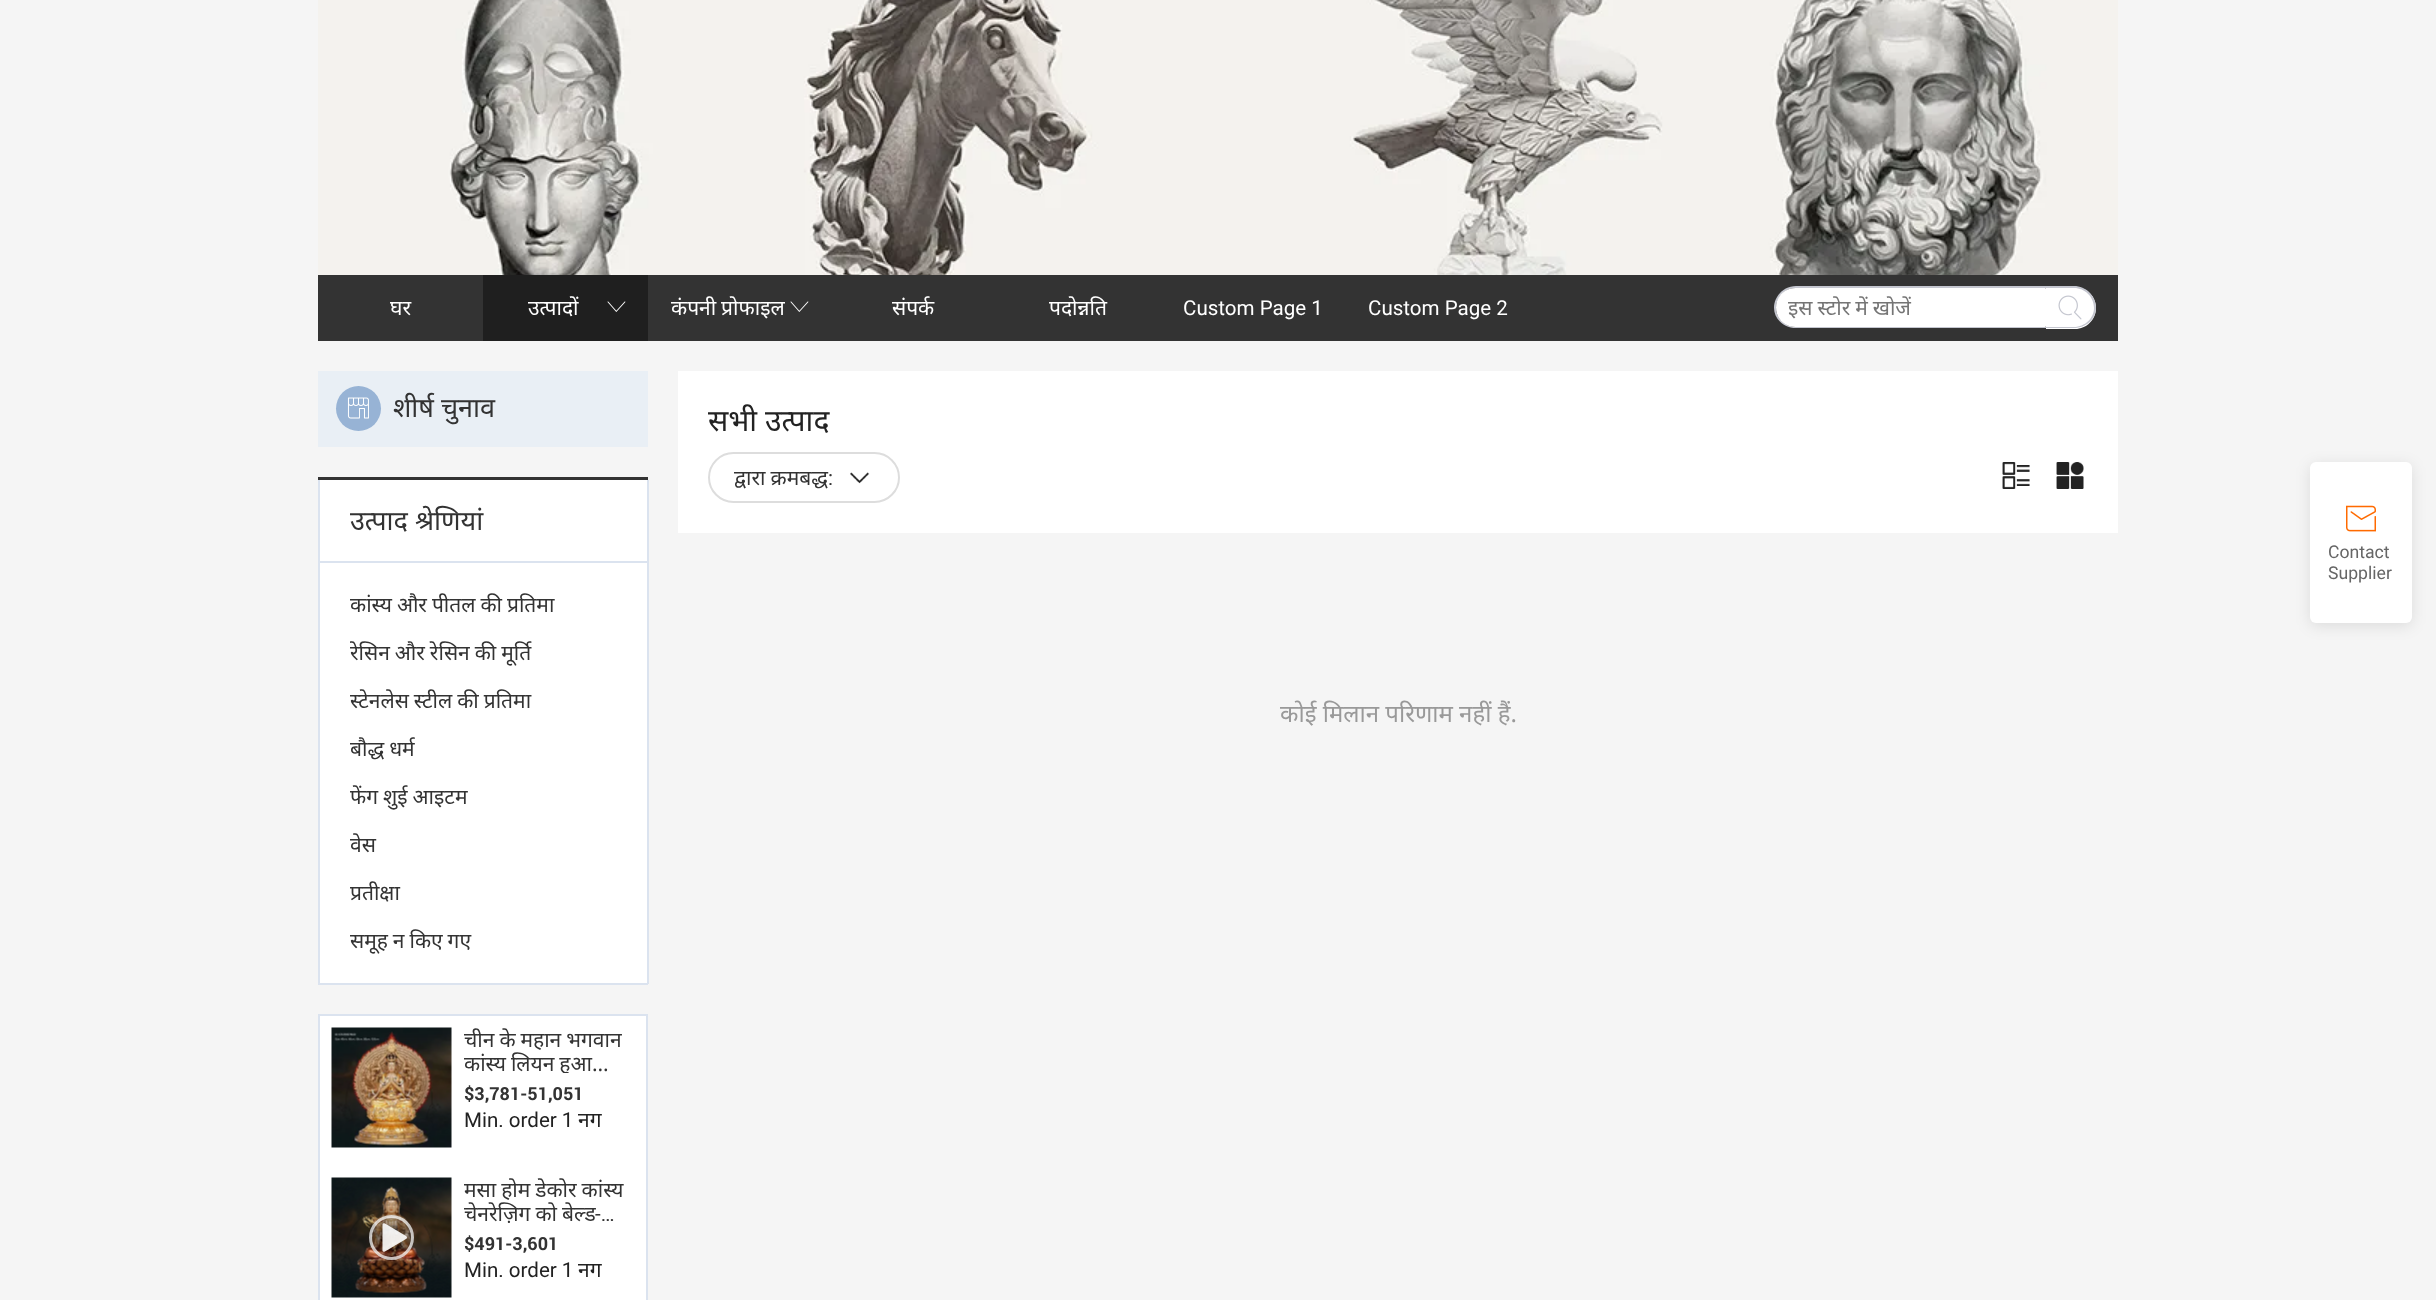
<svg xmlns="http://www.w3.org/2000/svg" xmlns:xlink="http://www.w3.org/1999/xlink" width="2436" height="1300" viewBox="0 0 2436 1300">
<style>
.cls-1{font:21px Noto Sans;fill:#ffffff}
.cls-2{font:21px Roboto;fill:#ffffff}
.cls-3{font:21px Noto Sans;fill:#757575}
.cls-4{font:27px Noto Sans;fill:#333333}
.cls-5{font:21px Noto Sans;fill:#333333}
.cls-6{font:bold 18px Roboto;fill:#333333}
.cls-7{font:21px Roboto;fill:#222222}
.cls-8{font:21px Noto Sans;fill:#222222}
.cls-9{font:21px Roboto;fill:#333333}
.cls-10{font:30px Noto Sans;fill:#222222}
.cls-11{font:24px Noto Sans;fill:#999999}
.cls-12{font:18px Roboto;fill:#666666}
</style>
<defs>
<clipPath id="clip1"><rect x="671" y="293" width="114" height="30"/></clipPath>
<clipPath id="clip2"><rect x="350" y="581" width="267" height="48"/></clipPath>
<clipPath id="clip3"><rect x="350" y="629" width="267" height="48"/></clipPath>
<clipPath id="clip4"><rect x="350" y="677" width="267" height="48"/></clipPath>
<clipPath id="clip5"><rect x="350" y="725" width="267" height="48"/></clipPath>
<clipPath id="clip6"><rect x="350" y="773" width="267" height="48"/></clipPath>
<clipPath id="clip7"><rect x="350" y="821" width="267" height="48"/></clipPath>
<clipPath id="clip8"><rect x="464" y="1028" width="171" height="45"/></clipPath>
<clipPath id="clip9"><rect x="464" y="1178" width="171" height="45"/></clipPath>
</defs>
<rect width="100%" height="100%" fill="#f5f5f5"/>
<image xlink:href="image0.png" x="318" y="0" width="1800" height="275"/>
<rect fill="#333333" x="318" y="275" width="1800" height="66"/>
<rect fill="#1f1f1f" x="483" y="275" width="165" height="66"/>
<image xlink:href="image1.png" x="607" y="301" width="19" height="11"/>
<image xlink:href="image2.png" x="790" y="301" width="19" height="11"/>
<path fill="#c4c6cf" fill-rule="evenodd" d="M1796 286H2046V328H1796C1784 328 1774 319 1774 308C1774 296 1784 286 1796 286ZM1796 288H2046V327H1796C1785 327 1776 318 1776 308C1776 297 1785 288 1796 288Z"/>
<path fill="#ffffff" d="M1795.5 288H2045C2045.5 288 2046 288.5 2046 289V326C2046 326.5 2045.5 327 2045 327H1795.5C1784.5 327 1776 318.5 1776 307.5C1776 296.5 1784.5 288 1795.5 288Z"/>
<path fill="#ffffff" d="M2046 287H2075C2086.5 287 2096 296.5 2096 308C2096 319.5 2086.5 329 2075 329H2046Z"/>
<path fill="#c4c6cf" fill-rule="evenodd" d="M2046 286H2074C2086 286 2096 296 2096 308C2096 319 2086 328 2074 328H2046ZM2046 288H2074C2085 288 2094 297 2094 308C2094 318 2085 327 2074 327H2046Z"/>
<image xlink:href="image3.png" x="2058" y="295" width="24" height="25"/>
<rect fill="#e9eff5" x="318" y="371" width="330" height="76"/>
<circle fill="#97b3d5" cx="358.5" cy="408.5" r="22.5"/>
<image xlink:href="image4.png" x="347" y="397" width="22" height="22"/>
<rect fill="#ffffff" x="320" y="480" width="327" height="503"/>
<rect fill="#333333" x="318" y="477" width="330" height="3"/>
<rect fill="#dbe3ef" x="647" y="480" width="2" height="504"/>
<rect fill="#dbe3ef" x="318" y="983" width="330" height="2"/>
<rect fill="#dbe3ef" x="318" y="480" width="2" height="504"/>
<rect fill="#dbe3ef" x="320" y="561" width="327" height="2"/>
<rect fill="#ffffff" stroke="#dbe3ef" stroke-width="2" x="319" y="1015" width="328" height="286"/>
<image xlink:href="image5.png" x="331" y="1027" width="121" height="121"/>
<image xlink:href="image6.png" x="331" y="1177" width="121" height="121"/>
<circle fill="#000000" fill-opacity="0.27" cx="391.5" cy="1237.5" r="22.5"/>
<circle fill="none" stroke="#ffffff" stroke-opacity="0.72" stroke-width="3" cx="391.5" cy="1237.5" r="21"/>
<image xlink:href="image7.png" x="382" y="1223" width="25" height="29"/>
<rect fill="#ffffff" x="678" y="371" width="1440" height="162"/>
<rect fill="none" stroke="#dddddd" stroke-width="2" x="709" y="453" width="190" height="49" rx="24.5"/>
<image xlink:href="image8.png" x="850" y="472" width="20" height="12"/>
<image xlink:href="image9.png" x="2002" y="462" width="28" height="27"/>
<image xlink:href="image10.png" x="2056" y="461" width="28" height="28"/>
<rect fill="#000000" fill-opacity="0.1" filter="blur(7.5px)" x="2310" y="465" width="102" height="161" rx="6"/>
<rect fill="#ffffff" x="2310" y="462" width="102" height="161" rx="6"/>
<image xlink:href="image11.png" x="2346" y="505" width="30" height="27"/>
<text class="cls-1" x="390" y="315">घर</text>
<text class="cls-1" x="528" y="315">उत्पादों</text>
<g clip-path="url(#clip1)">
<text class="cls-1" x="671" y="315" word-spacing="-0.5">कंपनी प्रोफाइल</text>
</g>
<text class="cls-1" x="892" y="315">संपर्क</text>
<text class="cls-1" x="1049" y="315">पदोन्नति</text>
<text class="cls-2" x="1183" y="315">Custom Page 1</text>
<text class="cls-2" x="1368" y="315">Custom Page 2</text>
<text class="cls-3" x="1788" y="315" word-spacing="-0.5">इस स्टोर में खोजें</text>
<text class="cls-4" x="393" y="417">शीर्ष चुनाव</text>
<text class="cls-4" x="350" y="530">उत्पाद श्रेणियां</text>
<g clip-path="url(#clip2)">
<text class="cls-5" x="350" y="612" word-spacing="-0.5">कांस्य और पीतल की प्रतिमा</text>
</g>
<g clip-path="url(#clip3)">
<text class="cls-5" x="350" y="660" word-spacing="-0.5">रेसिन और रेसिन की मूर्ति</text>
</g>
<g clip-path="url(#clip4)">
<text class="cls-5" x="350" y="708" word-spacing="-0.5">स्टेनलेस स्टील की प्रतिमा</text>
</g>
<g clip-path="url(#clip5)">
<text class="cls-5" x="350" y="756" word-spacing="-0.5">बौद्ध धर्म</text>
</g>
<g clip-path="url(#clip6)">
<text class="cls-5" x="350" y="804" word-spacing="-0.5">फेंग शुई आइटम</text>
</g>
<g clip-path="url(#clip7)">
<text class="cls-5" x="350" y="852">वेस</text>
</g>
<text class="cls-5" x="350" y="900">प्रतीक्षा</text>
<text class="cls-5" x="350" y="948" word-spacing="-0.5">समूह न किए गए</text>
<g clip-path="url(#clip8)">
<text class="cls-5"><tspan x="464" y="1047" word-spacing="-0.5">चीन के महान भगवान</tspan><tspan x="464" y="1071" word-spacing="-0.5">कांस्य लियन हुआ…</tspan></text>
</g>
<text class="cls-6" x="464" y="1100">$3,781-51,051</text>
<text class="cls-7" x="464" y="1127">Min. order 1</text>
<text class="cls-8" x="578" y="1127">नग</text>
<text class="cls-5" x="464" y="1197" word-spacing="-0.5">मसा होम डेकोर कांस्य</text>
<g clip-path="url(#clip9)">
<text class="cls-5" x="464" y="1221" word-spacing="-0.5">चेनरेज़िग को बेल्ड</text>
</g>
<text class="cls-9" x="595" y="1221">-…</text>
<text class="cls-6" x="464" y="1250">$491-3,601</text>
<text class="cls-7" x="464" y="1277">Min. order 1</text>
<text class="cls-8" x="578" y="1277">नग</text>
<text class="cls-10" x="708" y="431">सभी उत्पाद</text>
<text class="cls-5" x="734" y="485" word-spacing="-0.5">द्वारा क्रमबद्ध</text>
<text class="cls-9" x="828" y="485">:</text>
<text class="cls-11" x="1280" y="722">कोई मिलान परिणाम नहीं हैं.</text>
<text class="cls-12"><tspan x="2328" y="558">Contact</tspan><tspan x="2328" y="579">Supplier</tspan></text>
</svg>
